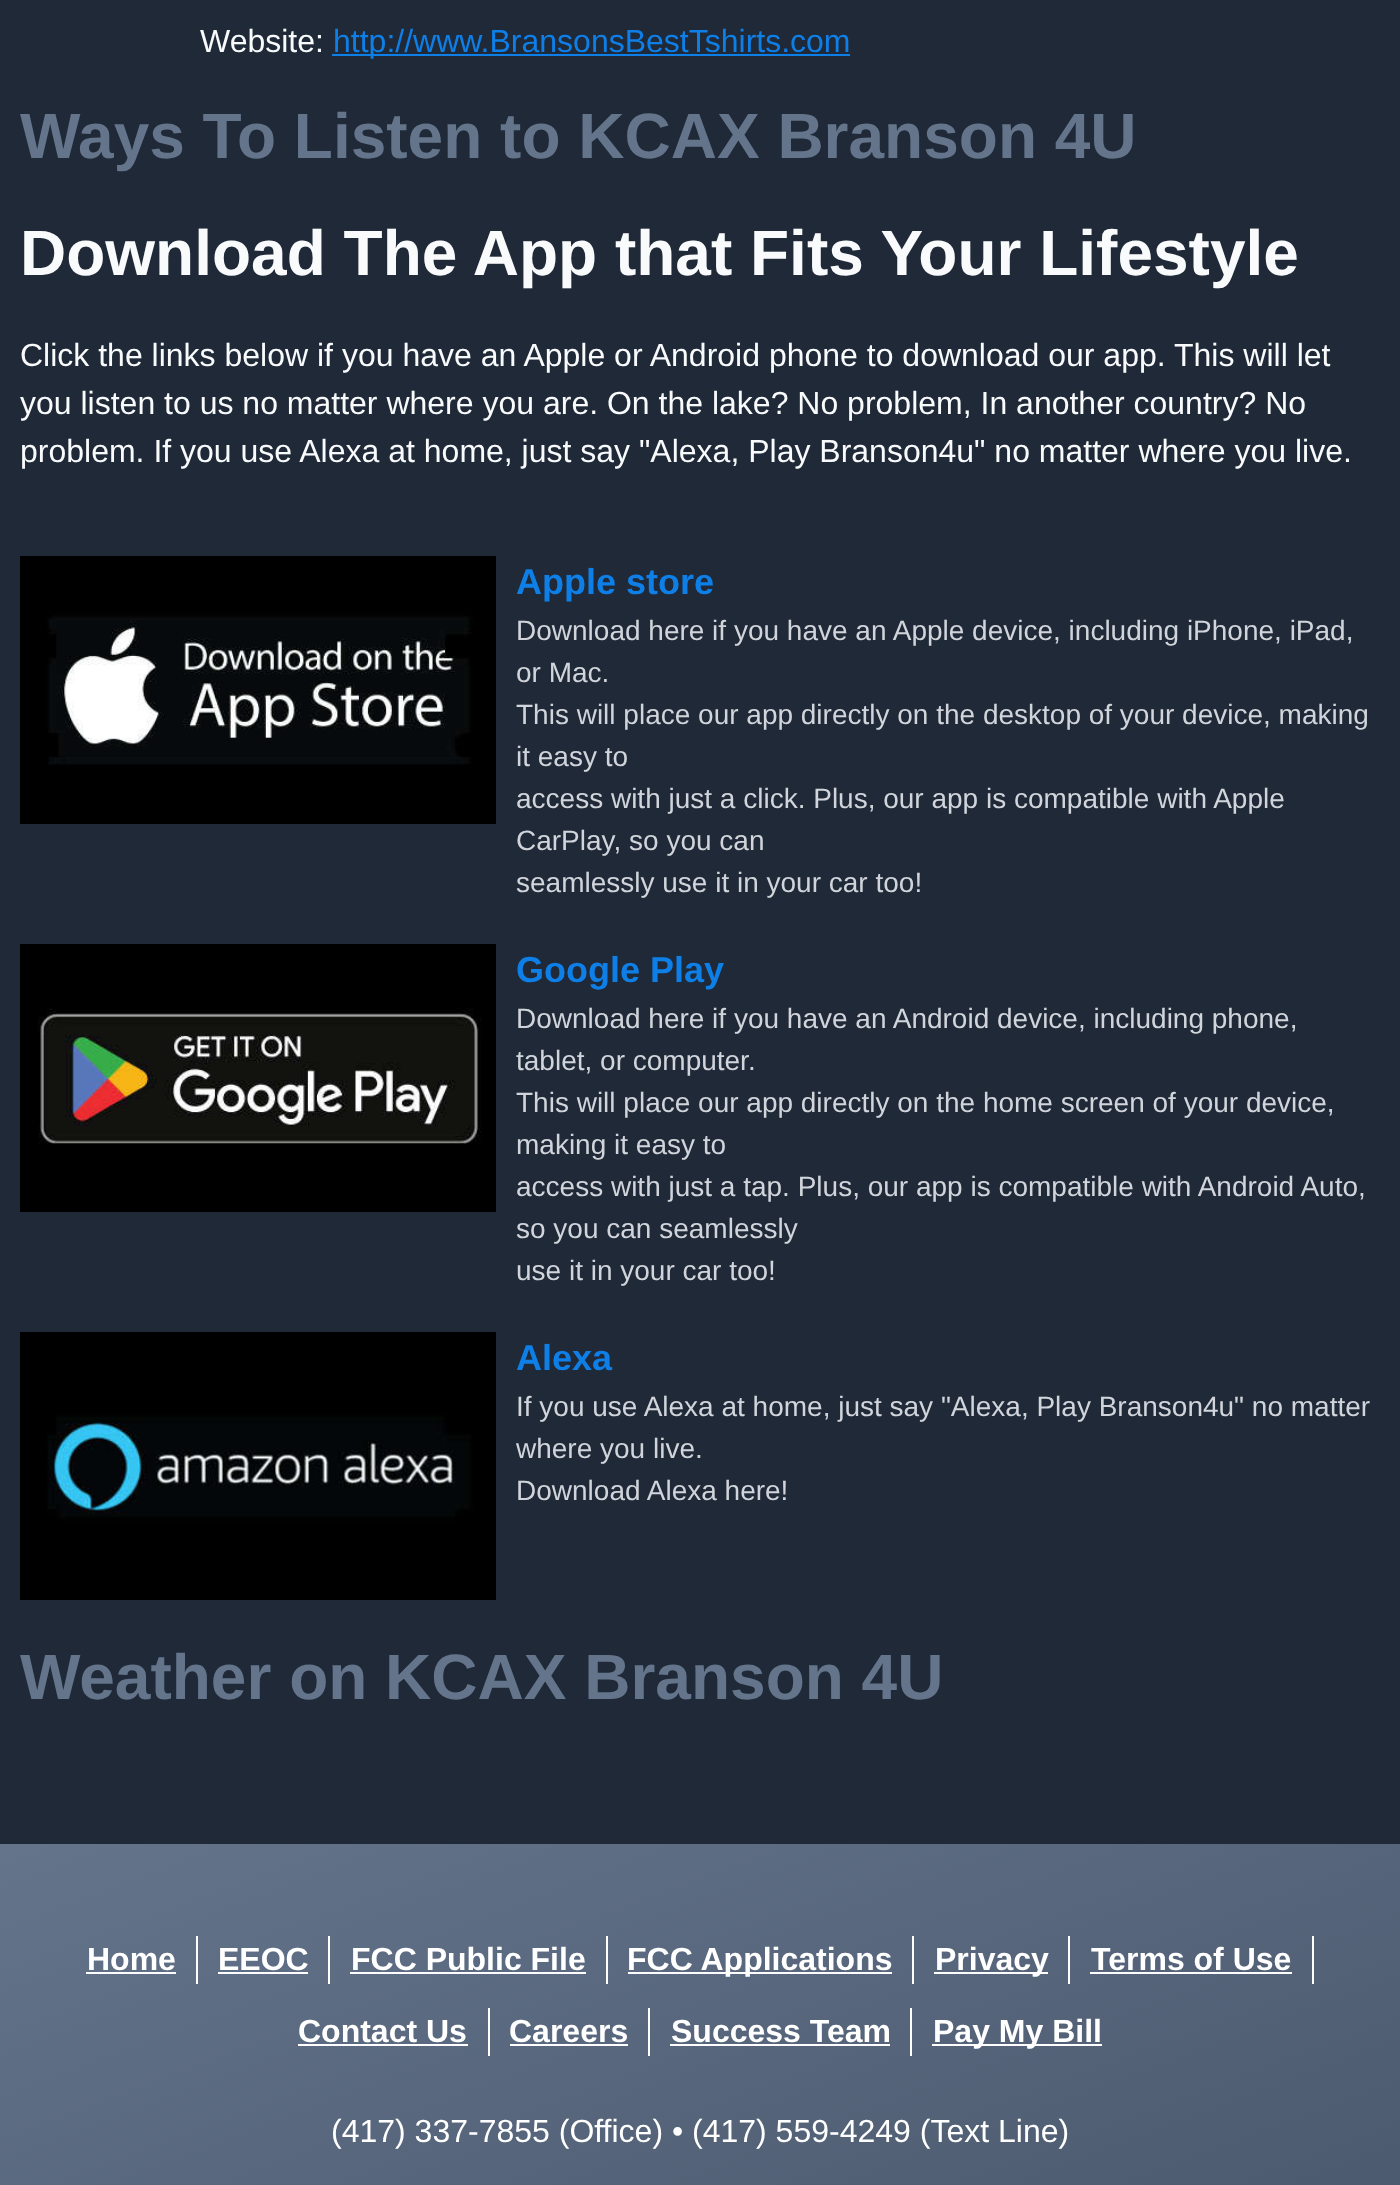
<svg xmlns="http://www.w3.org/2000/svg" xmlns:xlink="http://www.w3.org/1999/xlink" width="1400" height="2185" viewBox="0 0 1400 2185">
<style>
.cls-1{font:32px Liberation Sans;fill:#f8fafc}
.cls-2{font:32px Liberation Sans;fill:#0f7fe8}
.cls-3{font:bold 64px Liberation Sans;fill:#64748b}
.cls-4{font:bold 64px Liberation Sans;fill:#f8fafc}
.cls-5{font:bold 36px Liberation Sans;fill:#0f7fe8}
.cls-6{font:28px Liberation Sans;fill:#d1d5db}
.cls-7{font:bold 32px Liberation Sans;fill:#ffffff}
.cls-8{font:32px Liberation Sans;fill:#ffffff}
</style>
<defs>
<linearGradient id="g1" gradientUnits="userSpaceOnUse" x1="530" y1="1647" x2="870" y2="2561"><stop offset="0" stop-color="#64748b"/><stop offset="1" stop-color="#475569"/></linearGradient>
</defs>
<rect width="100%" height="100%" fill="#1f2937"/>
<rect fill="#0f7fe8" x="332" y="54" width="518" height="2"/>
<image xlink:href="image0.png" x="20" y="556" width="476" height="268"/>
<image xlink:href="image1.png" x="20" y="944" width="476" height="268"/>
<image xlink:href="image2.png" x="20" y="1332" width="476" height="268"/>
<rect fill="url(#g1)" x="0" y="1844" width="1400" height="341"/>
<rect fill="#ffffff" x="196" y="1936" width="2" height="48"/>
<rect fill="#ffffff" x="86" y="1972" width="90" height="2"/>
<rect fill="#ffffff" x="328" y="1936" width="2" height="48"/>
<rect fill="#ffffff" x="218" y="1972" width="90" height="2"/>
<rect fill="#ffffff" x="606" y="1936" width="2" height="48"/>
<rect fill="#ffffff" x="350" y="1972" width="236" height="2"/>
<rect fill="#ffffff" x="912" y="1936" width="2" height="48"/>
<rect fill="#ffffff" x="628" y="1972" width="264" height="2"/>
<rect fill="#ffffff" x="1068" y="1936" width="2" height="48"/>
<rect fill="#ffffff" x="934" y="1972" width="114" height="2"/>
<rect fill="#ffffff" x="1312" y="1936" width="2" height="48"/>
<rect fill="#ffffff" x="1090" y="1972" width="202" height="2"/>
<rect fill="#ffffff" x="488" y="2008" width="2" height="48"/>
<rect fill="#ffffff" x="298" y="2044" width="170" height="2"/>
<rect fill="#ffffff" x="648" y="2008" width="2" height="48"/>
<rect fill="#ffffff" x="510" y="2044" width="118" height="2"/>
<rect fill="#ffffff" x="910" y="2008" width="2" height="48"/>
<rect fill="#ffffff" x="670" y="2044" width="220" height="2"/>
<rect fill="#ffffff" x="932" y="2044" width="170" height="2"/>
<text class="cls-1" x="200" y="52">Website:</text>
<text class="cls-2" x="333" y="52">http://www.BransonsBestTshirts.com</text>
<text class="cls-3" x="20" y="158">Ways To Listen to KCAX Branson 4U</text>
<text class="cls-4" x="20" y="275">Download The App that Fits Your Lifestyle</text>
<text class="cls-1"><tspan x="20" y="366">Click the links below if you have an Apple or Android phone to download our app. This will let</tspan><tspan x="20" y="414">you listen to us no matter where you are. On the lake? No problem, In another country? No</tspan><tspan x="20" y="462">problem. If you use Alexa at home, just say "Alexa, Play Branson4u" no matter where you live.</tspan></text>
<text class="cls-5" x="516" y="594">Apple store</text>
<text class="cls-6"><tspan x="516" y="640">Download here if you have an Apple device, including iPhone, iPad,</tspan><tspan x="516" y="682">or Mac.</tspan><tspan x="516" y="724">This will place our app directly on the desktop of your device, making</tspan><tspan x="516" y="766">it easy to</tspan><tspan x="516" y="808">access with just a click. Plus, our app is compatible with Apple</tspan><tspan x="516" y="850">CarPlay, so you can</tspan><tspan x="516" y="892">seamlessly use it in your car too!</tspan></text>
<text class="cls-5" x="516" y="982">Google Play</text>
<text class="cls-6"><tspan x="516" y="1028">Download here if you have an Android device, including phone,</tspan><tspan x="516" y="1070">tablet, or computer.</tspan><tspan x="516" y="1112">This will place our app directly on the home screen of your device,</tspan><tspan x="516" y="1154">making it easy to</tspan><tspan x="516" y="1196">access with just a tap. Plus, our app is compatible with Android Auto,</tspan><tspan x="516" y="1238">so you can seamlessly</tspan><tspan x="516" y="1280">use it in your car too!</tspan></text>
<text class="cls-5" x="516" y="1370">Alexa</text>
<text class="cls-6"><tspan x="516" y="1416">If you use Alexa at home, just say "Alexa, Play Branson4u" no matter</tspan><tspan x="516" y="1458">where you live.</tspan><tspan x="516" y="1500">Download Alexa here!</tspan></text>
<text class="cls-3" x="20" y="1699">Weather on KCAX Branson 4U</text>
<text class="cls-7" x="87" y="1970">Home</text>
<text class="cls-7" x="218" y="1970">EEOC</text>
<text class="cls-7" x="351" y="1970">FCC Public File</text>
<text class="cls-7" x="627" y="1970">FCC Applications</text>
<text class="cls-7" x="935" y="1970">Privacy</text>
<text class="cls-7" x="1091" y="1970">Terms of Use</text>
<text class="cls-7" x="298" y="2042">Contact Us</text>
<text class="cls-7" x="509" y="2042">Careers</text>
<text class="cls-7" x="671" y="2042">Success Team</text>
<text class="cls-7" x="933" y="2042">Pay My Bill</text>
<text class="cls-8" x="331" y="2142">(417) 337-7855 (Office) • (417) 559-4249 (Text Line)</text>
</svg>
